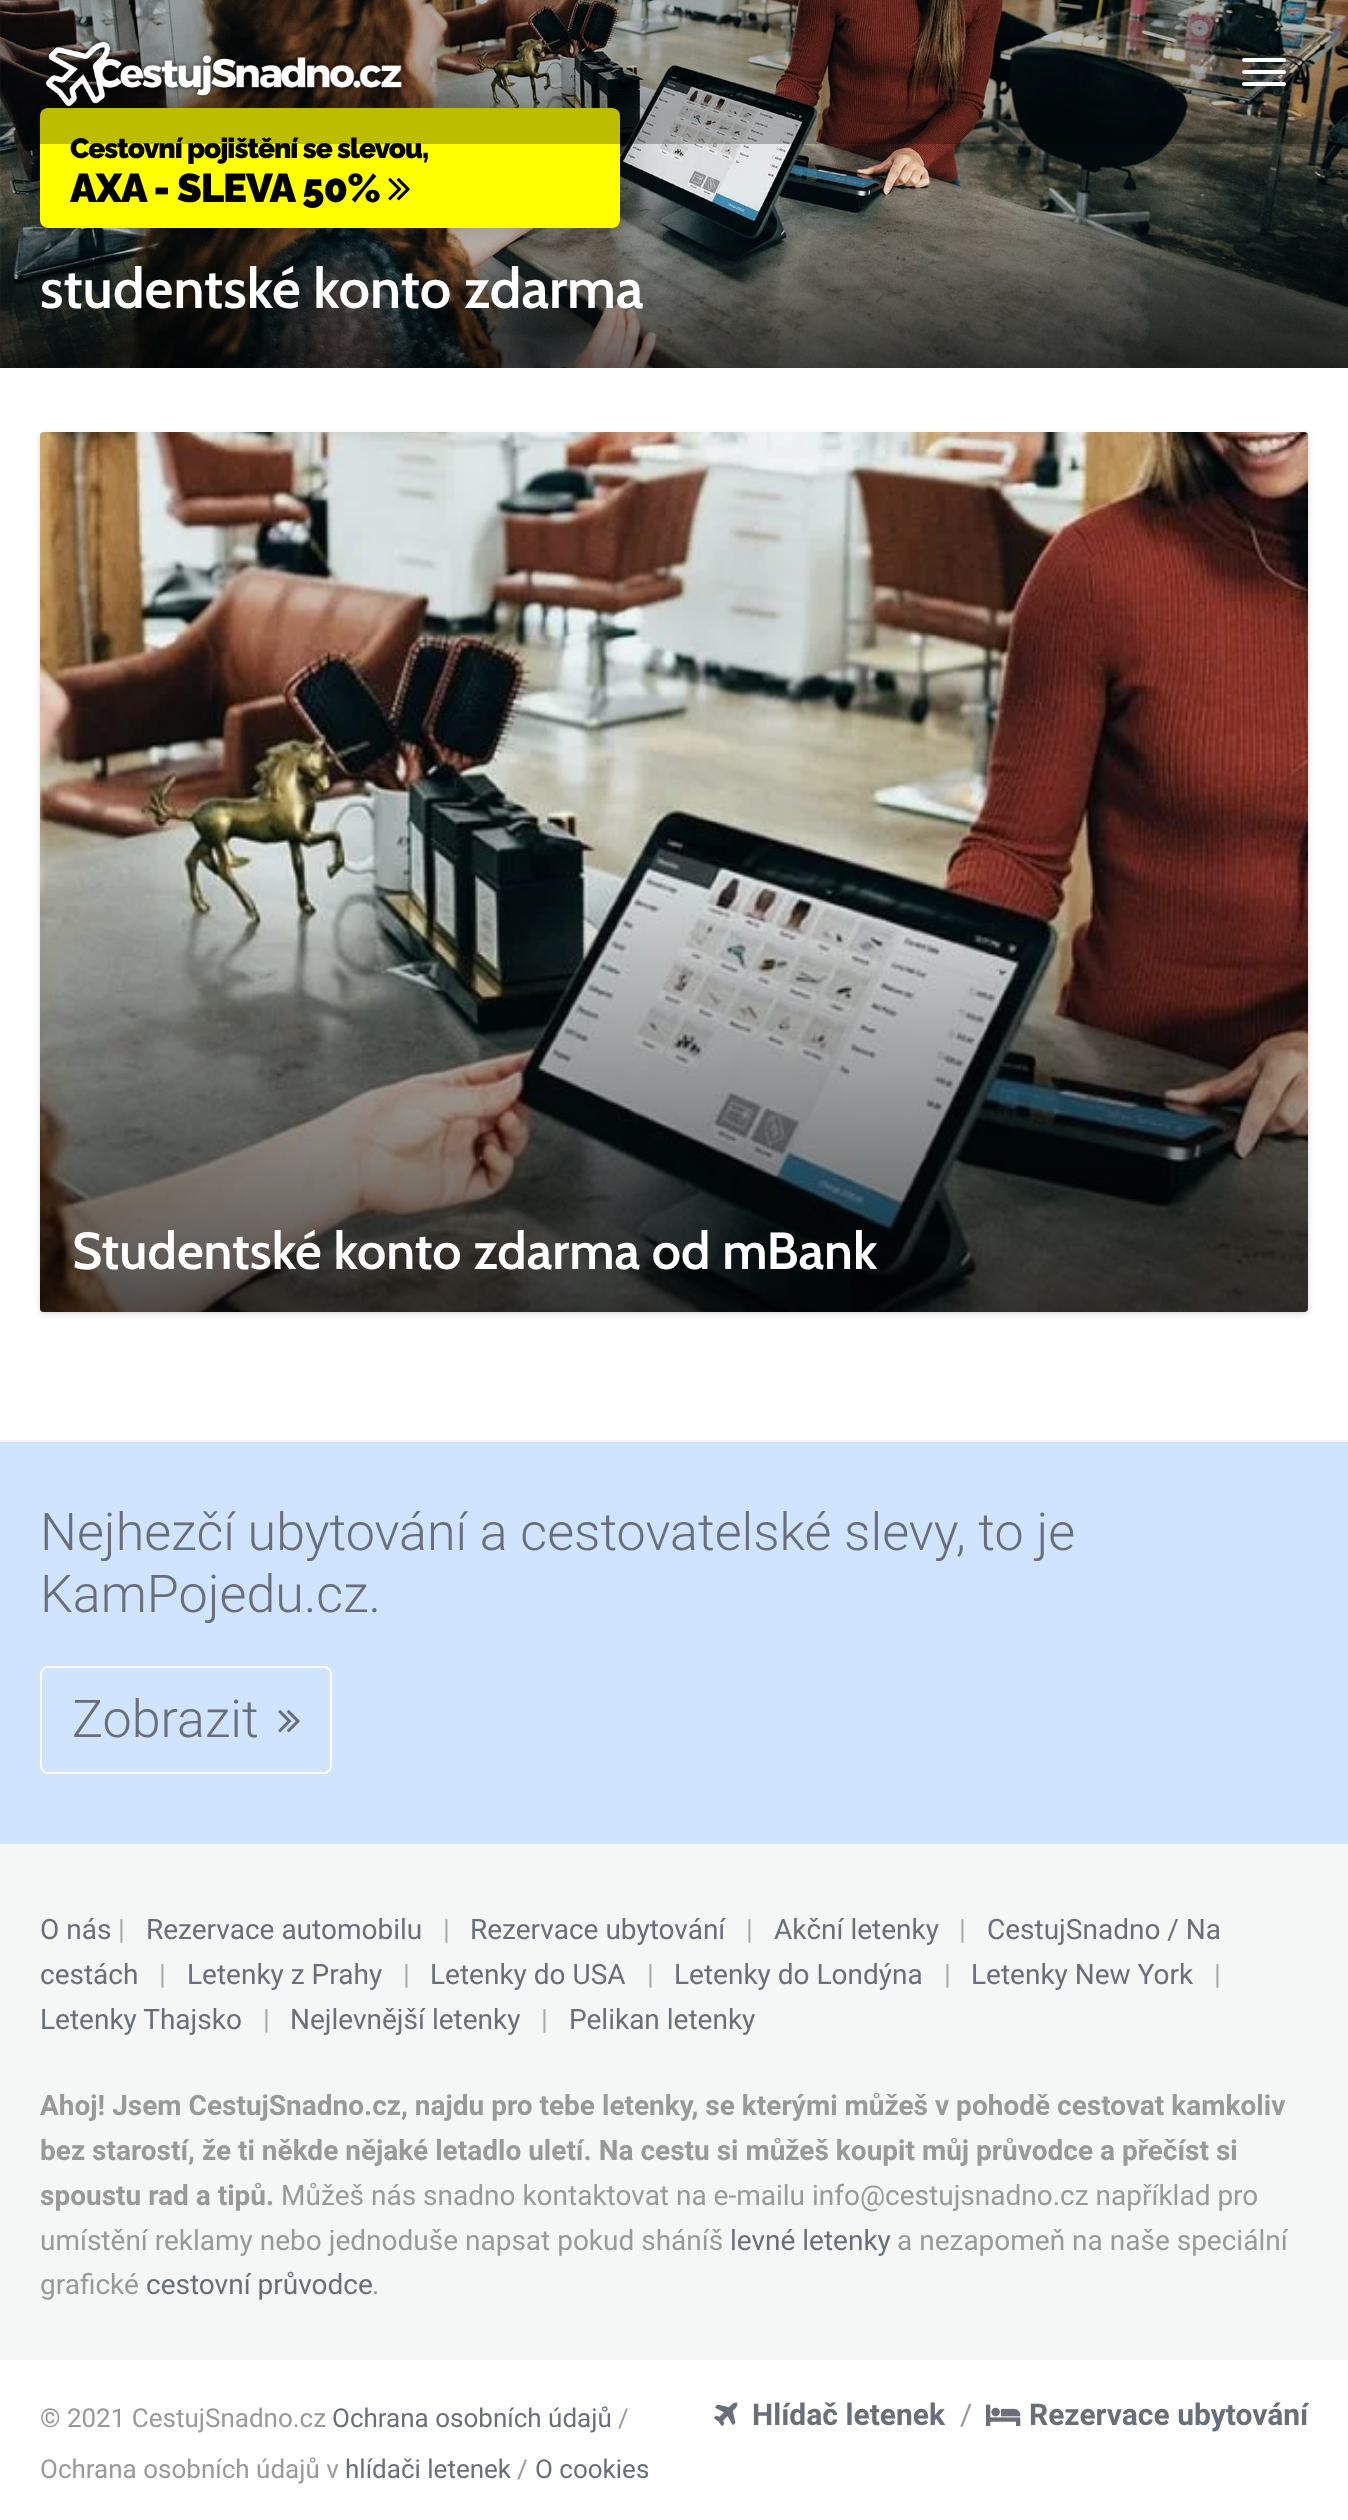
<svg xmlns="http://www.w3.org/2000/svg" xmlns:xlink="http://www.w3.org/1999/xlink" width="1348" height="2520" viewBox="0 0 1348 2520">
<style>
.cls-1{font:100 28px Raleway;letter-spacing:-1px;fill:#000000}
.cls-2{font:100 40px Raleway;letter-spacing:-1px;fill:#000000}
.cls-3{font:600 56px Cabin;fill:#ffffff}
.cls-4{font:600 52px Cabin;fill:#ffffff}
.cls-5{font:300 52px Roboto;fill:#696f7a}
.cls-6{font:28px Roboto;fill:#696f7a}
.cls-7{font:28px Roboto;fill:#aaaaaa}
.cls-8{font:bold 28px Roboto;fill:#999999}
.cls-9{font:28px Roboto;fill:#999999}
.cls-10{font:26px Roboto;fill:#999999}
.cls-11{font:26px Roboto;fill:#696f7a}
.cls-12{font:bold 30px Roboto;fill:#696f7a}
.cls-13{font:30px Roboto;fill:#999999}
</style>
<defs>
<linearGradient id="g1" gradientUnits="userSpaceOnUse" x1="674" y1="432" x2="674" y2="1312"><stop offset="0.5" stop-color="#000000" stop-opacity="0.03"/><stop offset="1" stop-color="#000000" stop-opacity="0.66"/></linearGradient>
</defs>
<rect width="100%" height="100%" fill="#ffffff"/>
<image xlink:href="image1.png" x="0" y="0" width="1348" height="368"/>
<rect fill="#000000" fill-opacity="0.4" filter="blur(20px)" x="40" y="108" width="580" height="120" rx="8"/>
<rect fill="#ffff00" x="40" y="108" width="580" height="120" rx="8"/>
<image xlink:href="image2.png" x="388" y="178" width="22" height="23"/>
<rect fill="#000000" fill-opacity="0.15" filter="blur(3px)" x="40" y="434" width="1268" height="880" rx="4"/>
<image xlink:href="image3.png" x="40" y="432" width="1268" height="880"/>
<rect fill="url(#g1)" x="40" y="432" width="1268" height="880" rx="4"/>
<rect fill="#f1f1f1" x="0" y="1440" width="1348" height="2"/>
<rect fill="#d0e3ff" x="0" y="1442" width="1348" height="402"/>
<rect fill="none" stroke="#ffffff" stroke-width="2" x="41" y="1667" width="290" height="106" rx="7"/>
<image xlink:href="image4.png" x="278" y="1710" width="22" height="23"/>
<rect fill="#f5f6f6" x="0" y="1844" width="1348" height="514"/>
<rect fill="#f5f5f5" x="0" y="2358" width="1348" height="2"/>
<image xlink:href="image5.png" x="714" y="2402" width="24" height="24"/>
<image xlink:href="image6.png" x="986" y="2404" width="35" height="22"/>
<text class="cls-1" x="70" y="158">Cestovní pojištění se slevou,</text>
<rect fill="#000000" fill-opacity="0.26" x="0" y="0" width="1348" height="144"/>
<rect fill="#ffffff" x="1242" y="82" width="44" height="4" rx="2"/>
<rect fill="#ffffff" x="1242" y="70" width="44" height="4" rx="2"/>
<rect fill="#ffffff" x="1242" y="58" width="44" height="4" rx="2"/>
<image xlink:href="image0.png" x="45" y="38" width="360" height="72"/>
<text class="cls-2" x="70" y="202">AXA - SLEVA 50%</text>
<text class="cls-3" x="40" y="308">studentské konto zdarma</text>
<text class="cls-4" x="72" y="1269">Studentské konto zdarma od mBank</text>
<text class="cls-5"><tspan x="40" y="1550">Nejhezčí ubytování a cestovatelské slevy, to je</tspan><tspan x="40" y="1612">KamPojedu.cz.</tspan></text>
<text class="cls-5" x="72" y="1737">Zobrazit</text>
<text class="cls-6" x="40" y="1939">O nás</text>
<text class="cls-7" x="118" y="1939">|</text>
<text class="cls-6" x="146" y="1939">Rezervace automobilu</text>
<text class="cls-7" x="443" y="1939">|</text>
<text class="cls-6" x="470" y="1939">Rezervace ubytování</text>
<text class="cls-7" x="746" y="1939">|</text>
<text class="cls-6" x="774" y="1939">Akční letenky</text>
<text class="cls-7" x="959" y="1939">|</text>
<text class="cls-6" x="987" y="1939">CestujSnadno / Na</text>
<text class="cls-6" x="40" y="1984">cestách</text>
<text class="cls-7" x="159" y="1984">|</text>
<text class="cls-6" x="187" y="1984">Letenky z Prahy</text>
<text class="cls-7" x="403" y="1984">|</text>
<text class="cls-6" x="430" y="1984">Letenky do USA</text>
<text class="cls-7" x="647" y="1984">|</text>
<text class="cls-6" x="674" y="1984">Letenky do Londýna</text>
<text class="cls-7" x="944" y="1984">|</text>
<text class="cls-6" x="971" y="1984">Letenky New York</text>
<text class="cls-7" x="1214" y="1984">|</text>
<text class="cls-6" x="40" y="2029">Letenky Thajsko</text>
<text class="cls-7" x="263" y="2029">|</text>
<text class="cls-6" x="290" y="2029">Nejlevnější letenky</text>
<text class="cls-7" x="541" y="2029">|</text>
<text class="cls-6" x="569" y="2029">Pelikan letenky</text>
<text class="cls-8"><tspan x="40" y="2115">Ahoj! Jsem CestujSnadno.cz, najdu pro tebe letenky, se kterými můžeš v pohodě cestovat kamkoliv</tspan><tspan x="40" y="2160">bez starostí, že ti někde nějaké letadlo uletí. Na cestu si můžeš koupit můj průvodce a přečíst si</tspan><tspan x="40" y="2205">spoustu rad a tipů.</tspan></text>
<text class="cls-9" x="281" y="2205">Můžeš nás snadno kontaktovat na e-mailu info@cestujsnadno.cz například pro</text>
<text class="cls-9" x="40" y="2250">umístění reklamy nebo jednoduše napsat pokud sháníš</text>
<text class="cls-6" x="730" y="2250">levné letenky</text>
<text class="cls-9" x="897" y="2250">a nezapomeň na naše speciální</text>
<text class="cls-9" x="40" y="2294">grafické</text>
<text class="cls-6" x="146" y="2294">cestovní průvodce</text>
<text class="cls-9" x="372" y="2294">.</text>
<text class="cls-10" x="40" y="2427">© 2021 CestujSnadno.cz</text>
<text class="cls-11" x="332" y="2427">Ochrana osobních údajů</text>
<text class="cls-10" x="618" y="2427">/</text>
<text class="cls-12" x="752" y="2425">Hlídač letenek</text>
<text class="cls-13" x="960" y="2425">/</text>
<text class="cls-12" x="1029" y="2425">Rezervace ubytování</text>
<text class="cls-10" x="40" y="2478">Ochrana osobních údajů v</text>
<text class="cls-11" x="345" y="2478">hlídači letenek</text>
<text class="cls-10" x="517" y="2478">/</text>
<text class="cls-11" x="535" y="2478">O cookies</text>
</svg>
